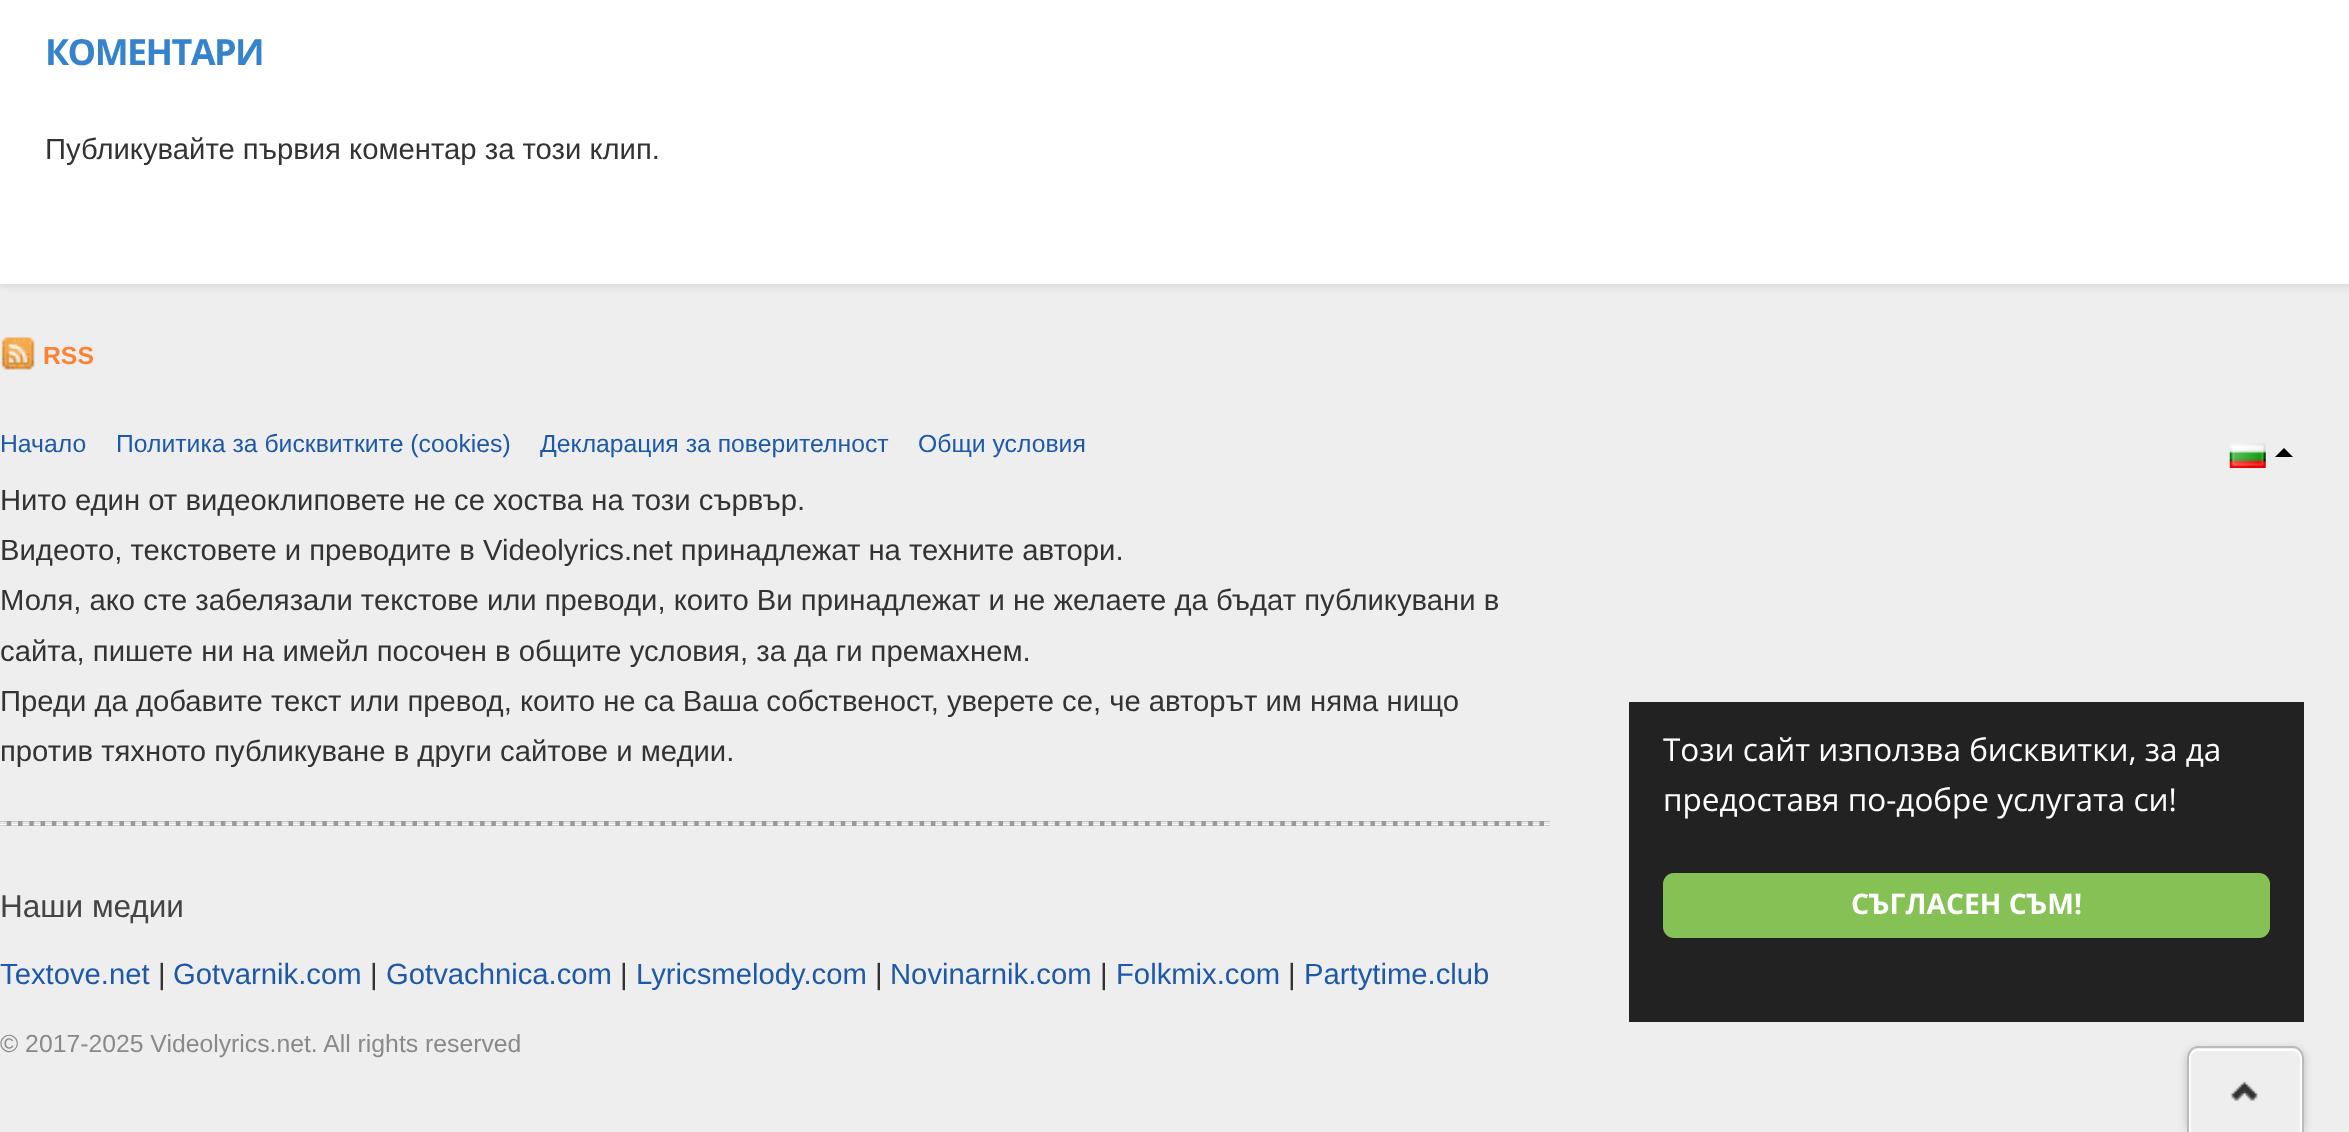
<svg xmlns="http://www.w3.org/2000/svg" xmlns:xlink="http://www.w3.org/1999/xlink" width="2349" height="1132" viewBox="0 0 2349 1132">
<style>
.cls-1{font:bold 36px Open Sans;letter-spacing:-1.6px;fill:#3583cc}
.cls-2{font:29.25px Liberation Sans;fill:#333333}
.cls-3{font:bold 24.75px Liberation Sans;fill:#fc8130}
.cls-4{font:24.75px Liberation Sans;fill:#1d59a8}
.cls-5{font:31.5px Liberation Sans;fill:#444444}
.cls-6{font:29.25px Liberation Sans;fill:#1d59a8}
.cls-7{font:24.75px Liberation Sans;fill:#898989}
.cls-8{font:31.5px Open Sans;fill:#ffffff}
.cls-9{font:bold 28.25px Open Sans;fill:#ffffff}
</style>
<rect width="100%" height="100%" fill="#eeeeee"/>
<rect fill="#000000" fill-opacity="0.1" filter="blur(4.5px)" x="0" y="-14" width="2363" height="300"/>
<rect fill="#ffffff" x="0" y="0" width="2349" height="284"/>
<rect fill="#000000" fill-opacity="0.2" filter="blur(4.5px)" x="2187" y="1049" width="117" height="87" rx="11"/>
<path fill="#eeeeee" d="M2198 1046H2293C2299 1046 2304 1051 2304 1057V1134H2187V1057C2187 1051 2192 1046 2198 1046Z"/>
<path fill="none" stroke="#ffffff" stroke-width="2" d="M2198 1050H2293C2297.5 1050 2301 1053.5 2301 1058V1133H2190V1058C2190 1053.5 2193.5 1050 2198 1050Z"/>
<path fill="#bbbbbb" fill-rule="evenodd" d="M2198 1046H2293C2299 1046 2304 1051 2304 1058V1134H2187V1058C2187 1051 2192 1046 2198 1046ZM2198 1048H2293C2298 1048 2302 1053 2302 1058V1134H2189V1058C2189 1053 2193 1048 2198 1048Z"/>
<image xlink:href="image0.png" x="2230" y="1081" width="28" height="20"/>
<image xlink:href="image1.png" x="1" y="337" width="34" height="33"/>
<rect fill="#999999" x="0" y="821" width="1550" height="5"/>
<path fill="none" stroke="#eeeeee" stroke-width="2.2" stroke-dasharray="6.75 4.52" d="M0 822.5H1550"/>
<path fill="none" stroke="#ffffff" stroke-width="2.2" stroke-dasharray="6.75 4.52" d="M0 824.5H1550"/>
<image xlink:href="image2.png" x="2229" y="443" width="37" height="25"/>
<path fill="#000000" d="M2293 457H2275L2284 448Z"/>
<rect fill="#222222" x="1629" y="702" width="675" height="320"/>
<rect fill="#85c154" x="1663" y="873" width="607" height="65" rx="11"/>
<text class="cls-1" x="45" y="65">КОМЕНТАРИ</text>
<text class="cls-2" x="45" y="159">Публикувайте първия коментар за този клип.</text>
<text class="cls-3" x="43" y="364">RSS</text>
<text class="cls-4" x="0" y="452">Начало</text>
<text class="cls-4" x="116" y="452">Политика за бисквитките (cookies)</text>
<text class="cls-4" x="540" y="452">Декларация за поверителност</text>
<text class="cls-4" x="918" y="452">Общи условия</text>
<text class="cls-2"><tspan x="0" y="510">Нито един от видеоклиповете не се хоства на този сървър.</tspan><tspan x="0" y="560">Видеото, текстовете и преводите в Videolyrics.net принадлежат на техните автори.</tspan><tspan x="0" y="610">Моля, ако сте забелязали текстове или преводи, които Ви принадлежат и не желаете да бъдат публикувани в</tspan><tspan x="0" y="661">сайта, пишете ни на имейл посочен в общите условия, за да ги премахнем.</tspan><tspan x="0" y="711">Преди да добавите текст или превод, които не са Ваша собственост, уверете се, че авторът им няма нищо</tspan><tspan x="0" y="761">против тяхното публикуване в други сайтове и медии.</tspan></text>
<text class="cls-5" x="0" y="917">Наши медии</text>
<text class="cls-6" x="0" y="984">Textove.net</text>
<text class="cls-2" x="158" y="984">|</text>
<text class="cls-6" x="173" y="984">Gotvarnik.com</text>
<text class="cls-2" x="370" y="984">|</text>
<text class="cls-6" x="386" y="984">Gotvachnica.com</text>
<text class="cls-2" x="620" y="984">|</text>
<text class="cls-6" x="636" y="984">Lyricsmelody.com</text>
<text class="cls-2" x="875" y="984">|</text>
<text class="cls-6" x="890" y="984">Novinarnik.com</text>
<text class="cls-2" x="1100" y="984">|</text>
<text class="cls-6" x="1116" y="984">Folkmix.com</text>
<text class="cls-2" x="1288" y="984">|</text>
<text class="cls-6" x="1304" y="984">Partytime.club</text>
<text class="cls-7" x="0" y="1052">© 2017-2025 Videolyrics.net. All rights reserved</text>
<text class="cls-8"><tspan x="1663" y="761">Този сайт използва бисквитки, за да</tspan><tspan x="1663" y="811">предоставя по-добре услугата си!</tspan></text>
<text class="cls-9" x="1851" y="914">СЪГЛАСЕН СЪМ!</text>
</svg>
